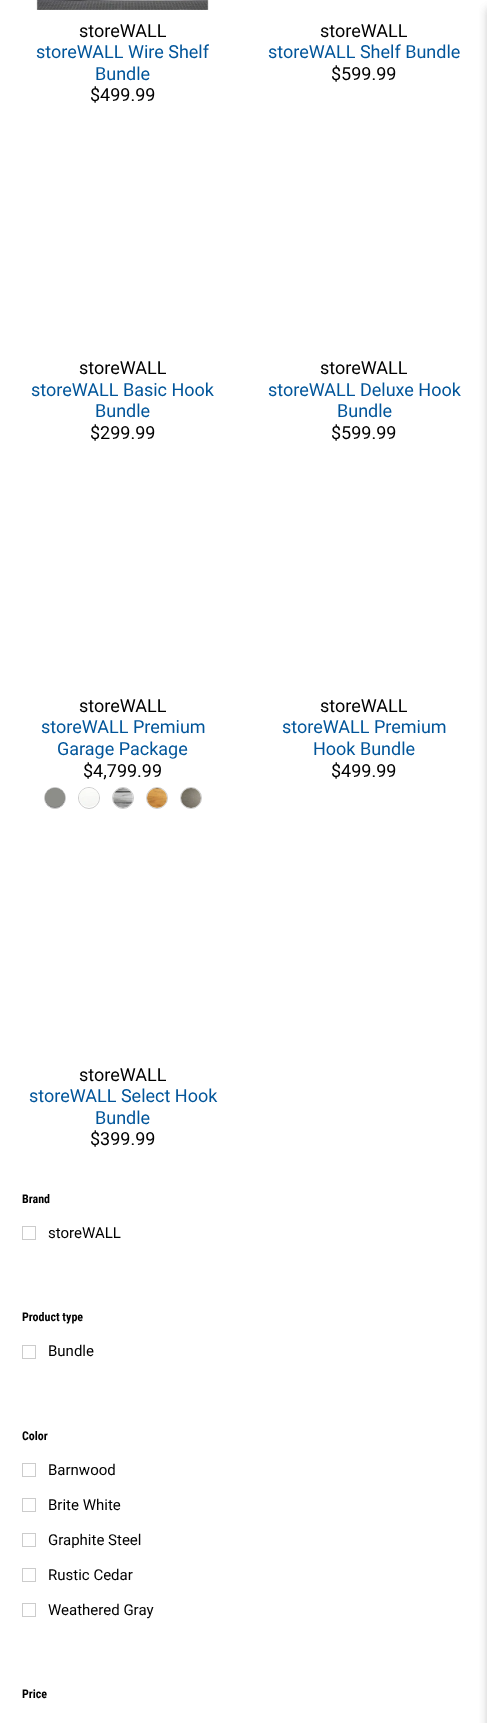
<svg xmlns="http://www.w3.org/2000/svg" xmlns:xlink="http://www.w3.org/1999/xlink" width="487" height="1723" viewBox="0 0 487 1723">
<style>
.cls-1{font:18px Roboto;fill:#000000}
.cls-2{font:18px Roboto;fill:#01559a}
.cls-3{font:bold 12px Roboto Condensed;fill:#000000}
.cls-4{font:15px Roboto;fill:#000000}
</style>
<rect width="100%" height="100%" fill="#ffffff"/>
<rect fill="#0a0a0a" fill-opacity="0.1" filter="blur(4px)" x="487" y="8" width="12" height="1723"/>
<image xlink:href="image0.png" x="36" y="0" width="173" height="10"/>
<circle fill="#808080" stroke="#cccccc" cx="55" cy="798" r="10.5"/>
<image xlink:href="image1.png" x="45" y="788" width="20" height="19"/>
<circle fill="none" stroke="#cccccc" cx="89" cy="798" r="10.5"/>
<image xlink:href="image2.png" x="79" y="788" width="20" height="19"/>
<circle fill="none" stroke="#cccccc" cx="123" cy="798" r="10.5"/>
<image xlink:href="image3.png" x="113" y="788" width="20" height="20"/>
<circle fill="none" stroke="#cccccc" cx="157" cy="798" r="10.5"/>
<image xlink:href="image4.png" x="147" y="788" width="20" height="20"/>
<circle fill="none" stroke="#cccccc" cx="191" cy="798" r="10.5"/>
<image xlink:href="image5.png" x="181" y="788" width="20" height="20"/>
<rect fill="none" stroke="#cccccc" x="22.5" y="1226.5" width="13" height="13"/>
<rect fill="none" stroke="#cccccc" x="22.5" y="1345.5" width="13" height="13"/>
<rect fill="none" stroke="#cccccc" x="22.5" y="1463.5" width="13" height="13"/>
<rect fill="none" stroke="#cccccc" x="22.5" y="1498.5" width="13" height="13"/>
<rect fill="none" stroke="#cccccc" x="22.5" y="1533.5" width="13" height="13"/>
<rect fill="none" stroke="#cccccc" x="22.5" y="1568.5" width="13" height="13"/>
<rect fill="none" stroke="#cccccc" x="22.5" y="1603.5" width="13" height="13"/>
<rect fill="#0a0a0a" fill-opacity="0.1" filter="blur(4px)" x="487" y="8" width="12" height="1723"/>
<text class="cls-1" x="79" y="37">storeWALL</text>
<text class="cls-2" x="36" y="58">storeWALL Wire Shelf</text>
<text class="cls-2" x="95" y="80">Bundle</text>
<text class="cls-1" x="90" y="101">$499.99</text>
<text class="cls-1" x="320" y="37">storeWALL</text>
<text class="cls-2" x="268" y="58">storeWALL Shelf Bundle</text>
<text class="cls-1" x="331" y="80">$599.99</text>
<text class="cls-1" x="79" y="374">storeWALL</text>
<text class="cls-2" x="31" y="396">storeWALL Basic Hook</text>
<text class="cls-2" x="95" y="417">Bundle</text>
<text class="cls-1" x="90" y="439">$299.99</text>
<text class="cls-1" x="320" y="374">storeWALL</text>
<text class="cls-2" x="268" y="396">storeWALL Deluxe Hook</text>
<text class="cls-2" x="337" y="417">Bundle</text>
<text class="cls-1" x="331" y="439">$599.99</text>
<text class="cls-1" x="79" y="712">storeWALL</text>
<text class="cls-2" x="41" y="733">storeWALL Premium</text>
<text class="cls-2" x="57" y="755">Garage Package</text>
<text class="cls-1" x="83" y="777">$4,799.99</text>
<text class="cls-1" x="320" y="712">storeWALL</text>
<text class="cls-2" x="282" y="733">storeWALL Premium</text>
<text class="cls-2" x="313" y="755">Hook Bundle</text>
<text class="cls-1" x="331" y="777">$499.99</text>
<text class="cls-1" x="79" y="1081">storeWALL</text>
<text class="cls-2" x="29" y="1102">storeWALL Select Hook</text>
<text class="cls-2" x="95" y="1124">Bundle</text>
<text class="cls-1" x="90" y="1145">$399.99</text>
<text class="cls-3" x="22" y="1203">Brand</text>
<text class="cls-4" x="48" y="1238">storeWALL</text>
<text class="cls-3" x="22" y="1321">Product type</text>
<text class="cls-4" x="48" y="1356">Bundle</text>
<text class="cls-3" x="22" y="1440">Color</text>
<text class="cls-4" x="48" y="1475">Barnwood</text>
<text class="cls-4" x="48" y="1510">Brite White</text>
<text class="cls-4" x="48" y="1545">Graphite Steel</text>
<text class="cls-4" x="48" y="1580">Rustic Cedar</text>
<text class="cls-4" x="48" y="1615">Weathered Gray</text>
<text class="cls-3" x="22" y="1698">Price</text>
</svg>
